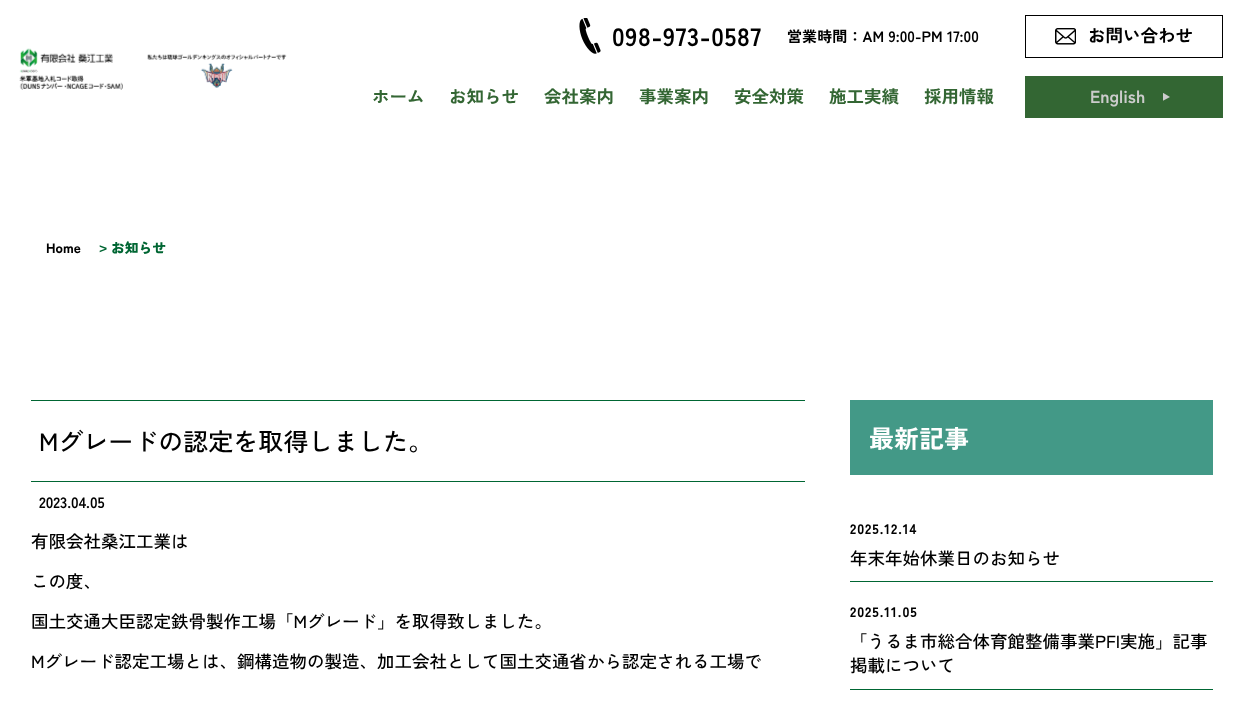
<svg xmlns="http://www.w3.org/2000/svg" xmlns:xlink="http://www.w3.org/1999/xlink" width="1242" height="701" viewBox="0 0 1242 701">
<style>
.cls-1{font:bold 25px Zen Kaku Gothic New;letter-spacing:0.75px;fill:#000000}
.cls-2{font:bold 15px Zen Kaku Gothic New;letter-spacing:0.1px;fill:#000000}
.cls-3{font:bold 17.5px Zen Kaku Gothic New;fill:#000000}
.cls-4{font:bold 17.5px Zen Kaku Gothic New;fill:#336633}
.cls-5{font:bold 17.5px Zen Kaku Gothic New;fill:#cccccc}
.cls-6{font:900 13.75px Zen Kaku Gothic New;fill:#000000}
.cls-7{font:900 13.75px Zen Kaku Gothic New;fill:#006633}
.cls-8{font:500 25px Zen Kaku Gothic New;fill:#000000}
.cls-9{font:bold 15px Zen Kaku Gothic New;fill:#000000}
.cls-10{font:500 17.5px Zen Kaku Gothic New;fill:#000000}
.cls-11{font:bold 25px Zen Kaku Gothic New;fill:#ffffff}
.cls-12{font:900 13.75px Zen Kaku Gothic New;letter-spacing:1px;fill:#000000}
</style>
<defs>
<clipPath id="clip1"><rect x="1163" y="93" width="7" height="8"/></clipPath>
</defs>
<rect width="100%" height="100%" fill="#ffffff"/>
<image xlink:href="image0.png" x="19" y="48" width="268" height="42"/>
<image xlink:href="image1.png" x="579" y="18" width="22" height="36"/>
<rect fill="none" stroke="#000000" x="1025.5" y="15.5" width="197" height="42"/>
<image xlink:href="image2.png" x="1055" y="28" width="21" height="17"/>
<rect fill="#336633" x="1025" y="76" width="198" height="42"/>
<g clip-path="url(#clip1)">
<path fill="#cccccc" d="M1162.5 101V92.5L1170 97Z"/>
</g>
<rect fill="#006633" x="31" y="400" width="774" height="1"/>
<rect fill="#006633" x="31" y="481" width="774" height="1"/>
<rect fill="#439987" x="850" y="400" width="363" height="75"/>
<rect fill="#006633" x="850" y="581" width="363" height="1"/>
<rect fill="#006633" x="850" y="689" width="363" height="1"/>
<text class="cls-1" x="612" y="46">098-973-0587</text>
<text class="cls-2" x="787" y="42">営業時間：AM 9:00-PM 17:00</text>
<text class="cls-3" x="1088" y="42">お問い合わせ</text>
<text class="cls-4" x="372" y="103">ホーム</text>
<text class="cls-4" x="449" y="103">お知らせ</text>
<text class="cls-4" x="544" y="103">会社案内</text>
<text class="cls-4" x="639" y="103">事業案内</text>
<text class="cls-4" x="734" y="103">安全対策</text>
<text class="cls-4" x="829" y="103">施工実績</text>
<text class="cls-4" x="924" y="103">採用情報</text>
<text class="cls-5" x="1090" y="103">English</text>
<text class="cls-6" x="46" y="253">Home</text>
<text class="cls-7" x="99" y="252">&gt;</text>
<text class="cls-7" x="111" y="253">お知らせ</text>
<text class="cls-8" x="39" y="451">Mグレードの認定を取得しました。</text>
<text class="cls-9" x="39" y="508">2023.04.05</text>
<text class="cls-10" x="31" y="548">有限会社桑江工業は</text>
<text class="cls-10" x="31" y="588">この度、</text>
<text class="cls-10" x="31" y="628">国土交通大臣認定鉄骨製作工場「Mグレード」を取得致しました。</text>
<text class="cls-10" x="31" y="668">Mグレード認定工場とは、鋼構造物の製造、加工会社として国土交通省から認定される工場で</text>
<text class="cls-11" x="869" y="448">最新記事</text>
<text class="cls-12" x="850" y="534">2025.12.14</text>
<text class="cls-10" x="850" y="565">年末年始休業日のお知らせ</text>
<text class="cls-12" x="850" y="617">2025.11.05</text>
<text class="cls-10"><tspan x="850" y="648">「うるま市総合体育館整備事業PFI実施」記事</tspan><tspan x="850" y="672">掲載について</tspan></text>
</svg>
